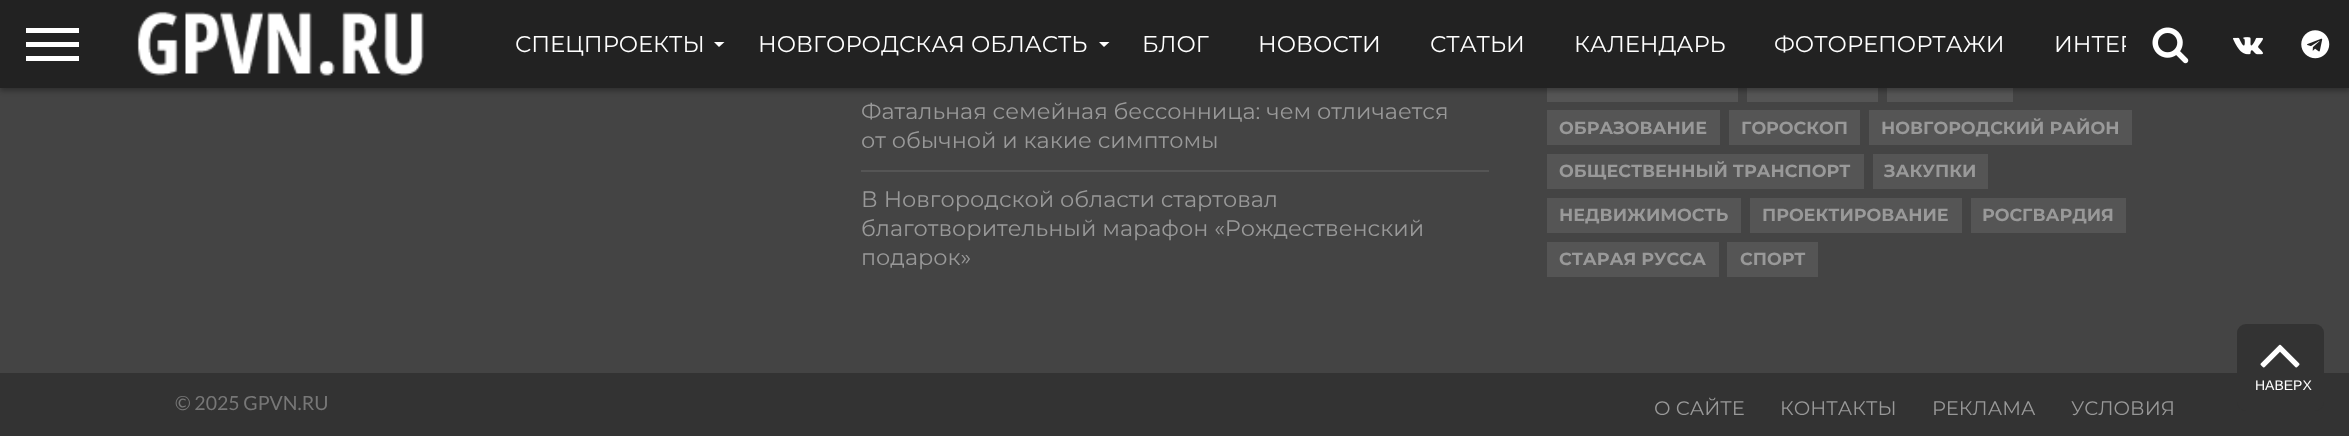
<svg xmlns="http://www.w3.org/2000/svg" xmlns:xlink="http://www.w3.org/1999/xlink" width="2349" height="436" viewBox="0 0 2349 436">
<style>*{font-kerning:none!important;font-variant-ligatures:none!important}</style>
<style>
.cls-1{font:22.75px Montserrat;fill:#ffffff}
.cls-2{font:22.4px Montserrat;fill:#999999}
.cls-3{font:bold 17.5px Montserrat;fill:#999999}
.cls-4{font:19.5px Lato;fill:#777777}
.cls-5{font:19.5px Montserrat;fill:#999999}
.cls-6{font:14px Liberation Sans;fill:#ffffff}
</style>
<rect width="100%" height="100%" fill="#444444"/>
<rect fill="#555555" x="1547" y="88" width="191" height="14"/>
<rect fill="#555555" x="1747" y="88" width="131" height="14"/>
<rect fill="#555555" x="1887" y="88" width="126" height="14"/>
<rect fill="#000000" fill-opacity="0.3" filter="blur(2.5px)" x="0" y="4" width="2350" height="87"/>
<rect fill="#222222" x="0" y="0" width="2126" height="88"/>
<rect fill="#ffffff" x="26" y="28" width="53" height="5"/>
<rect fill="#ffffff" x="26" y="42" width="53" height="5"/>
<rect fill="#ffffff" x="26" y="56" width="53" height="5"/>
<image xlink:href="image0.png" x="137" y="11" width="287" height="65"/>
<path fill="#ffffff" d="M714 42H724.5L719 47Z"/>
<path fill="#ffffff" d="M1099 42H1109.5L1104 47Z"/>
<rect fill="#555555" x="861" y="170" width="628" height="2"/>
<rect fill="#555555" x="1547" y="110" width="173" height="35"/>
<rect fill="#555555" x="1729" y="110" width="131" height="35"/>
<rect fill="#555555" x="1869" y="110" width="263" height="35"/>
<rect fill="#555555" x="1547" y="154" width="317" height="35"/>
<rect fill="#555555" x="1873" y="154" width="115" height="35"/>
<rect fill="#555555" x="1547" y="198" width="194" height="35"/>
<rect fill="#555555" x="1750" y="198" width="212" height="35"/>
<rect fill="#555555" x="1971" y="198" width="155" height="35"/>
<rect fill="#555555" x="1547" y="242" width="172" height="35"/>
<rect fill="#555555" x="1727" y="242" width="91" height="35"/>
<rect fill="#333333" x="0" y="373" width="2349" height="63"/>
<rect fill="#333333" x="2237" y="324" width="87" height="87" rx="9"/>
<image xlink:href="image4.png" x="2260" y="344" width="40" height="24"/>
<text class="cls-1" x="515" y="52">СПЕЦПРОЕКТЫ</text>
<text class="cls-1" x="758" y="52">НОВГОРОДСКАЯ</text>
<text class="cls-1" x="971" y="52">ОБЛАСТЬ</text>
<text class="cls-1" x="1142" y="52">БЛОГ</text>
<text class="cls-1" x="1258" y="52">НОВОСТИ</text>
<text class="cls-1" x="1430" y="52">СТАТЬИ</text>
<text class="cls-1" x="1574" y="52">КАЛЕНДАРЬ</text>
<text class="cls-1" x="1774" y="52">ФОТОРЕПОРТАЖИ</text>
<text class="cls-1" x="2054" y="52">ИНТЕР</text>
<rect fill="#222222" x="2126" y="0" width="223" height="88"/>
<image xlink:href="image1.png" x="2152" y="27" width="37" height="37"/>
<image xlink:href="image2.png" x="2233" y="37" width="30" height="18"/>
<image xlink:href="image3.png" x="2301" y="30" width="29" height="29"/>
<text class="cls-2"><tspan x="861" y="119">Фатальная семейная бессонница: чем отличается</tspan><tspan x="861" y="148">от обычной и какие симптомы</tspan></text>
<text class="cls-2"><tspan x="861" y="207">В Новгородской области стартовал</tspan><tspan x="861" y="236">благотворительный марафон «Рождественский</tspan><tspan x="861" y="265">подарок»</tspan></text>
<text class="cls-3" x="1559" y="134">ОБРАЗОВАНИЕ</text>
<text class="cls-3" x="1741" y="134">ГОРОСКОП</text>
<text class="cls-3" x="1881" y="134">НОВГОРОДСКИЙ РАЙОН</text>
<text class="cls-3" x="1559" y="177">ОБЩЕСТВЕННЫЙ ТРАНСПОРТ</text>
<text class="cls-3" x="1884" y="177">ЗАКУПКИ</text>
<text class="cls-3" x="1559" y="221">НЕДВИЖИМОСТЬ</text>
<text class="cls-3" x="1762" y="221">ПРОЕКТИРОВАНИЕ</text>
<text class="cls-3" x="1982" y="221">РОСГВАРДИЯ</text>
<text class="cls-3" x="1559" y="265">СТАРАЯ РУССА</text>
<text class="cls-3" x="1740" y="265">СПОРТ</text>
<text class="cls-4" x="175" y="410">© 2025 GPVN.RU</text>
<text class="cls-5" x="1654" y="415">О САЙТЕ</text>
<text class="cls-5" x="1780" y="415">КОНТАКТЫ</text>
<text class="cls-5" x="1932" y="415">РЕКЛАМА</text>
<text class="cls-5" x="2071" y="415">УСЛОВИЯ</text>
<text class="cls-6" x="2255" y="390">НАВЕРХ</text>
</svg>
